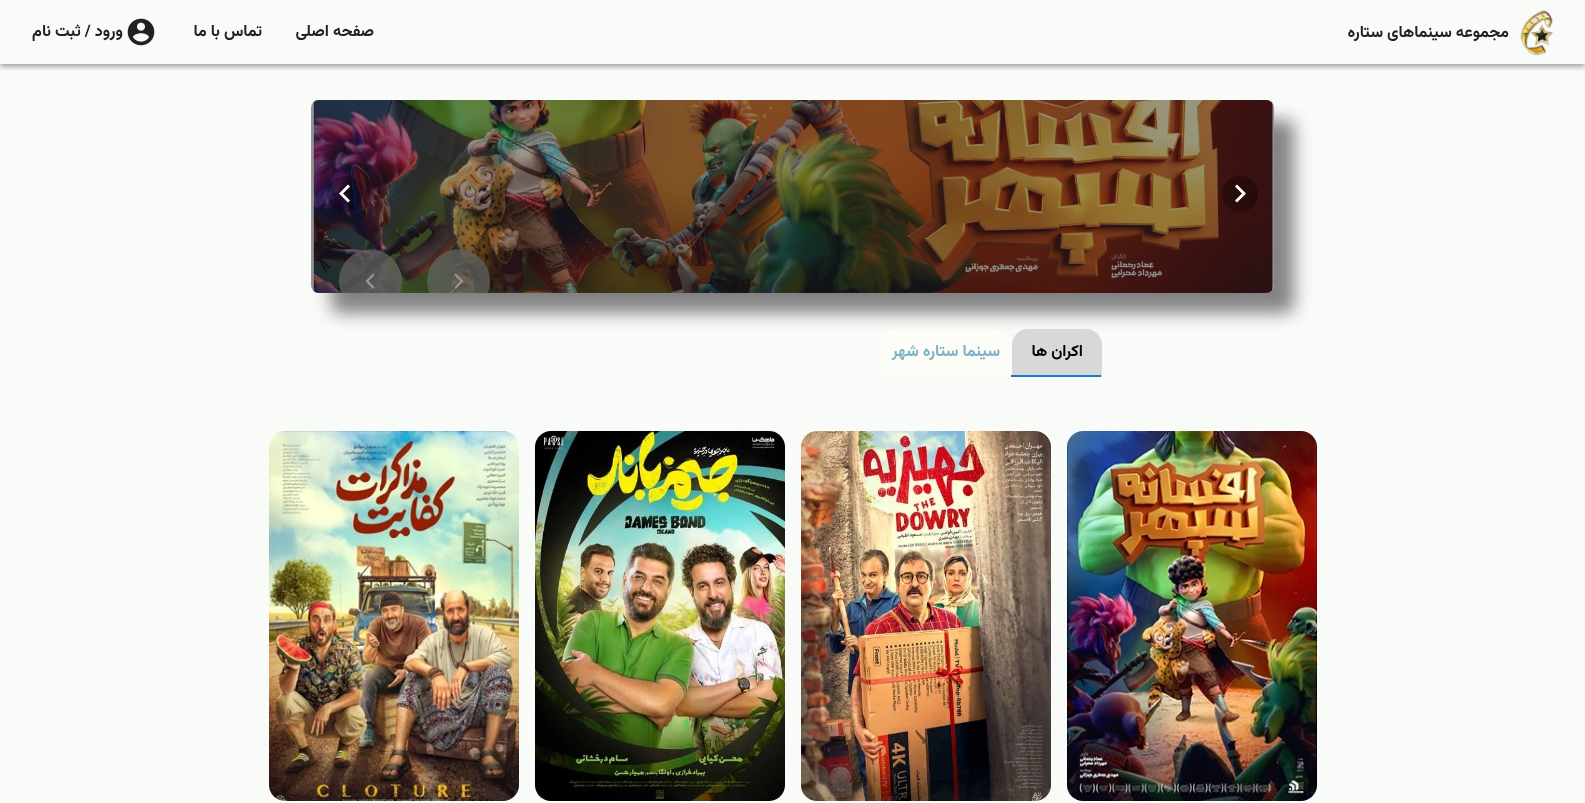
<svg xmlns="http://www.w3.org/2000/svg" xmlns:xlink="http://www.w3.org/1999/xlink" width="1585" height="803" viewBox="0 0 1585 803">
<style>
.cls-1{font:bold 16px Vazirmatn;direction:rtl;fill:#202120}
.cls-2{font:bold 16px Vazirmatn;direction:rtl;fill:#000000}
.cls-3{font:bold 16px Vazirmatn;direction:rtl;fill:#7eb1c7}
</style>
<defs>
<clipPath id="clip1"><rect x="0" y="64" width="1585" height="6"/></clipPath>
<clipPath id="clip2"><rect x="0" y="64" width="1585" height="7"/></clipPath>
<clipPath id="clip3"><rect x="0" y="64" width="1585" height="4"/></clipPath>
</defs>
<rect width="100%" height="100%" fill="#f9fbf9"/>
<g clip-path="url(#clip1)">
<rect fill="#000000" fill-opacity="0.12" filter="blur(5px)" x="0" y="1" width="1585" height="64"/>
</g>
<g clip-path="url(#clip2)">
<rect fill="#000000" fill-opacity="0.14" filter="blur(2.5px)" x="0" y="4" width="1585" height="64"/>
</g>
<g clip-path="url(#clip3)">
<rect fill="#000000" fill-opacity="0.2" filter="blur(2px)" x="1" y="3" width="1583" height="62"/>
</g>
<image xlink:href="image0.png" x="1520" y="10" width="33" height="46"/>
<image xlink:href="image1.png" x="127" y="18" width="28" height="28"/>
<rect fill="#787878" fill-opacity="0.93" filter="blur(8.5px)" x="331" y="120" width="963" height="193" rx="8"/>
<rect fill="#f9fbf9" x="311" y="100" width="963" height="193" rx="8"/>
<image xlink:href="image2.png" x="311" y="100" width="963" height="193"/>
<rect fill="#212121" fill-opacity="0.46" x="311" y="100" width="963" height="193" rx="8"/>
<circle fill="#000000" fill-opacity="0.3" cx="1240" cy="194" r="18"/>
<path fill="#ffffff" d="M1235 200.5L1242 193.5L1235 186.5L1237 184.5L1246 193.5L1237 202.5Z"/>
<circle fill="#000000" fill-opacity="0.3" cx="345" cy="194" r="18"/>
<path fill="#ffffff" d="M350 200.5L343 193.5L350 186.5L348 184.5L339 193.5L348 202.5Z"/>
<path fill="#d8d8d8" d="M1028 329H1086C1095 329 1102 336 1102 345V377H1012V345C1012 336 1019 329 1028 329Z"/>
<path fill="#fbfdf6" d="M895 329H996C1005 329 1012 336 1012 345V377H879V345C879 336 886 329 895 329Z"/>
<rect fill="#1976d2" x="1011" y="375" width="90" height="2"/>
<image xlink:href="image3.png" x="1067" y="431" width="250" height="370"/>
<image xlink:href="image4.png" x="801" y="431" width="250" height="370"/>
<image xlink:href="image5.png" x="535" y="431" width="250" height="370"/>
<image xlink:href="image6.png" x="269" y="431" width="250" height="370"/>
<text class="cls-1" x="1509" y="37">مجموعه سینماهای ستاره</text>
<text class="cls-1" x="374" y="36">صفحه اصلی</text>
<text class="cls-1" x="262" y="36">تماس با ما</text>
<text class="cls-1" x="123" y="36">ورود / ثبت نام</text>
<text class="cls-2" x="1083" y="356">اکران ها</text>
<text class="cls-3" x="1000" y="356">سینما ستاره شهر</text>
</svg>
